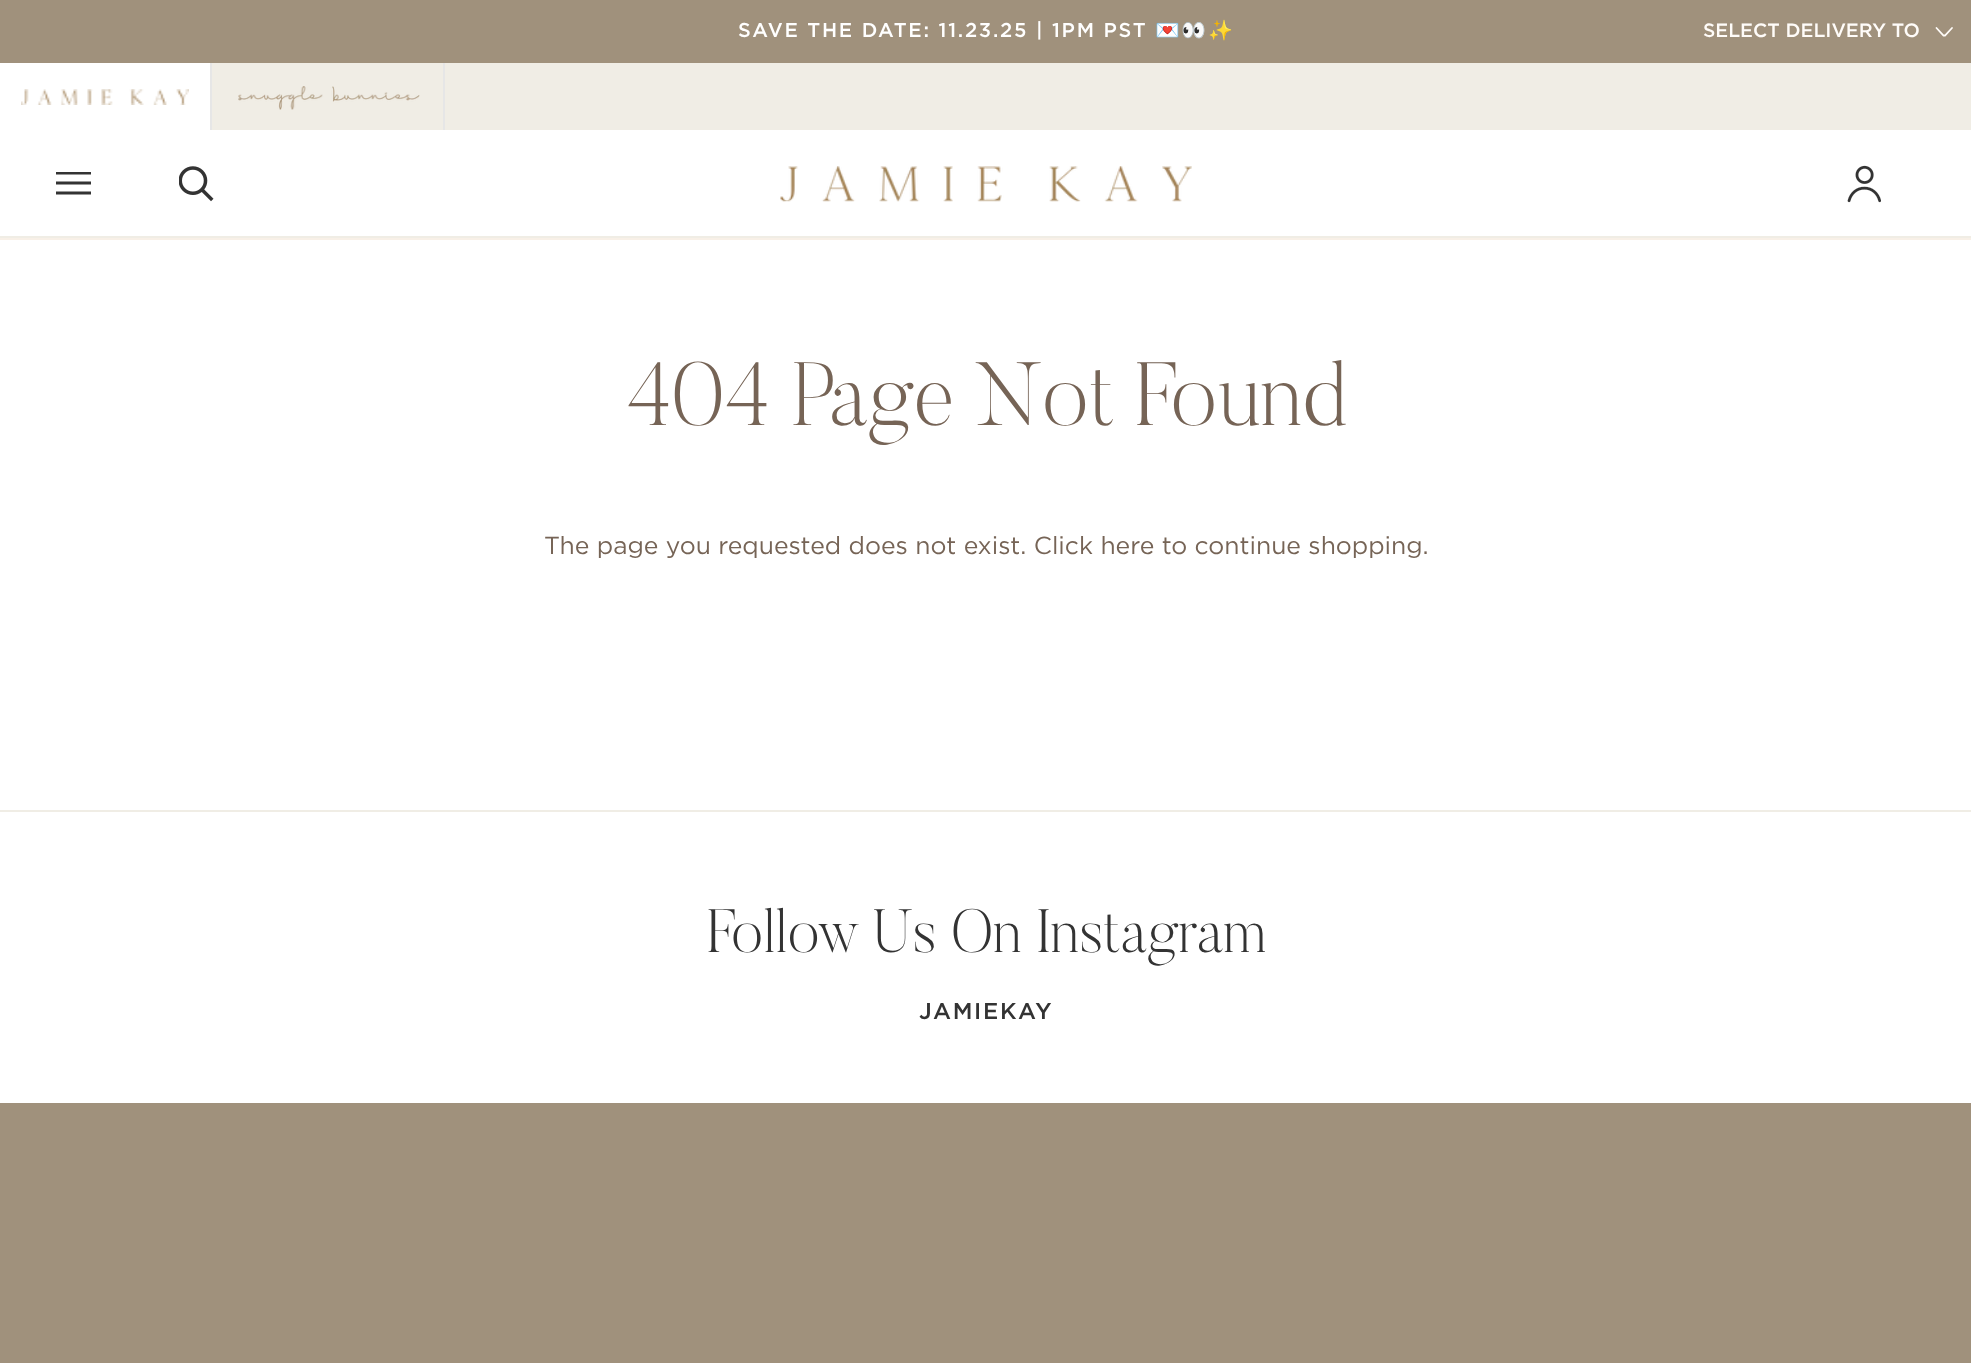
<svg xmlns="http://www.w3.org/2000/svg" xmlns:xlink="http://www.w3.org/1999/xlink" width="1971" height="1363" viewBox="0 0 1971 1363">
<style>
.cls-1{font:500 19.95px Gotham;letter-spacing:1.75px;fill:#ffffff}
.cls-2{font:19.95px Noto Color Emoji;letter-spacing:1.75px;fill:#ffffff}
.cls-3{font:500 19.25px Gotham;fill:#fffcf9}
.cls-4{font:200 89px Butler;fill:#766456}
.cls-5{font:24.7px Gotham;fill:#766456}
.cls-6{font:200 60.75px Butler;fill:#333333}
.cls-7{font:500 22.75px Gotham;letter-spacing:1.75px;fill:#333333}
</style>
<rect width="100%" height="100%" fill="#ffffff"/>
<rect fill="#a0917c" x="0" y="0" width="1971" height="63"/>
<path fill="none" stroke="#fffcf9" stroke-width="1.8" stroke-linecap="round" d="M1936.5 28L1943.5 35.5C1944 35.5 1944.5 35.5 1945 35.5L1952 28"/>
<rect fill="#f0ede5" x="212" y="63" width="1759" height="67"/>
<rect fill="#e6e6e6" x="210" y="63" width="2" height="67"/>
<image xlink:href="image0.png" x="21" y="89" width="168" height="16"/>
<rect fill="#e6e6e6" x="443" y="63" width="2" height="67"/>
<image xlink:href="image1.png" x="238" y="86" width="182" height="24"/>
<rect fill="#f8f0e7" x="0" y="238" width="1971" height="2"/>
<rect fill="#f0ede5" x="0" y="236" width="1971" height="2"/>
<path fill="#333333" d="M56 172H91V174.5H56ZM56 181.5H91V184.5H56ZM56 191.5H91V194.5H56Z"/>
<image xlink:href="image2.png" x="179" y="166" width="35" height="36"/>
<image xlink:href="image3.png" x="780" y="166" width="412" height="36"/>
<image xlink:href="image4.png" x="1847" y="165" width="34" height="38"/>
<rect fill="#f0ede5" x="0" y="810" width="1971" height="2"/>
<rect fill="#a0917c" x="0" y="1103" width="1971" height="260"/>
<text class="cls-1" x="738" y="37">SAVE THE DATE: 11.23.25 | 1PM PST</text>
<text class="cls-2" x="1155" y="37">💌👀✨</text>
<text class="cls-3" x="1703" y="37">SELECT DELIVERY TO</text>
<text class="cls-4" x="626" y="425">404 Page Not Found</text>
<text class="cls-5" x="544" y="554">The page you requested does not exist. Click here to continue shopping.</text>
<text class="cls-6" x="707" y="952">Follow Us On Instagram</text>
<text class="cls-7" x="919" y="1019">JAMIEKAY</text>
</svg>
